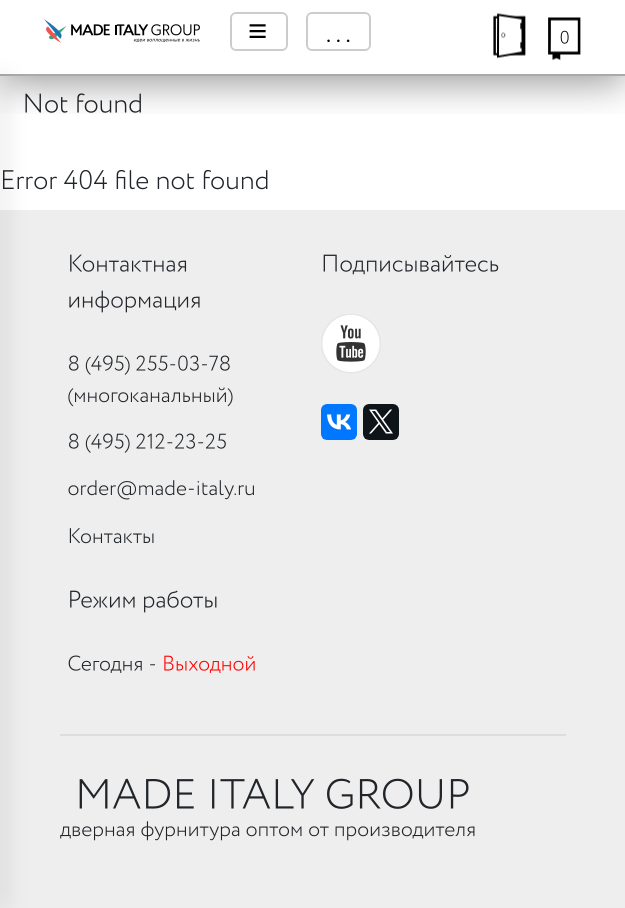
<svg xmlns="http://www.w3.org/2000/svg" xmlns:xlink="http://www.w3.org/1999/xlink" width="625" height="908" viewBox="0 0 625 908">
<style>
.cls-1{font:bold 33px Liberation Sans;fill:#000000}
</style>
<defs>
<clipPath id="clip1"><rect x="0" y="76" width="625" height="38"/></clipPath>
</defs>
<rect width="100%" height="100%" fill="#ffffff"/>
<image xlink:href="image5.png" x="25" y="93" width="116" height="20"/>
<g clip-path="url(#clip1)">
<rect fill="#000000" fill-opacity="0.4" filter="blur(19px)" x="0" y="8" width="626" height="75"/>
</g>
<rect fill="#aaaaaa" x="0" y="74" width="625" height="2"/>
<image xlink:href="image0.png" x="44" y="19" width="156" height="24"/>
<rect fill="none" stroke="#cccccc" stroke-width="2" x="231" y="13" width="56" height="37" rx="5"/>
<rect fill="none" stroke="#cccccc" stroke-width="2" x="307" y="13" width="63" height="37" rx="5"/>
<image xlink:href="image1.png" x="327" y="39" width="23" height="3"/>
<image xlink:href="image2.png" x="493" y="13" width="33" height="46"/>
<image xlink:href="image3.png" x="548" y="17" width="33" height="44"/>
<image xlink:href="image4.png" x="560" y="30" width="9" height="14"/>
<image xlink:href="image6.png" x="3" y="169" width="265" height="21"/>
<rect fill="#eeeeee" x="0" y="210" width="625" height="698"/>
<rect fill="#000000" fill-opacity="0.4" filter="blur(11px)" x="-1" y="74" width="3" height="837"/>
<image xlink:href="image7.png" x="70" y="254" width="117" height="18"/>
<image xlink:href="image8.png" x="69" y="290" width="131" height="23"/>
<image xlink:href="image9.png" x="69" y="355" width="161" height="20"/>
<image xlink:href="image10.png" x="68" y="387" width="165" height="20"/>
<image xlink:href="image11.png" x="69" y="433" width="157" height="20"/>
<image xlink:href="image12.png" x="68" y="480" width="186" height="20"/>
<image xlink:href="image13.png" x="69" y="528" width="85" height="16"/>
<image xlink:href="image14.png" x="323" y="254" width="176" height="21"/>
<image xlink:href="image15.png" x="321" y="314" width="60" height="60"/>
<rect fill="#0077ff" x="321" y="404" width="36" height="36" rx="6"/>
<image xlink:href="image16.png" x="327" y="414" width="24" height="16"/>
<rect fill="#0f1419" x="363" y="404" width="36" height="36" rx="6"/>
<image xlink:href="image17.png" x="369" y="409" width="24" height="25"/>
<image xlink:href="image18.png" x="70" y="590" width="147" height="23"/>
<image xlink:href="image19.png" x="68" y="655" width="87" height="18"/>
<image xlink:href="image20.png" x="164" y="655" width="91" height="18"/>
<rect fill="#dddddd" x="60" y="734" width="506" height="2"/>
<image xlink:href="image21.png" x="79" y="778" width="390" height="31"/>
<image xlink:href="image22.png" x="60" y="821" width="415" height="20"/>
<text class="cls-1" x="248" y="42">≡</text>
</svg>
